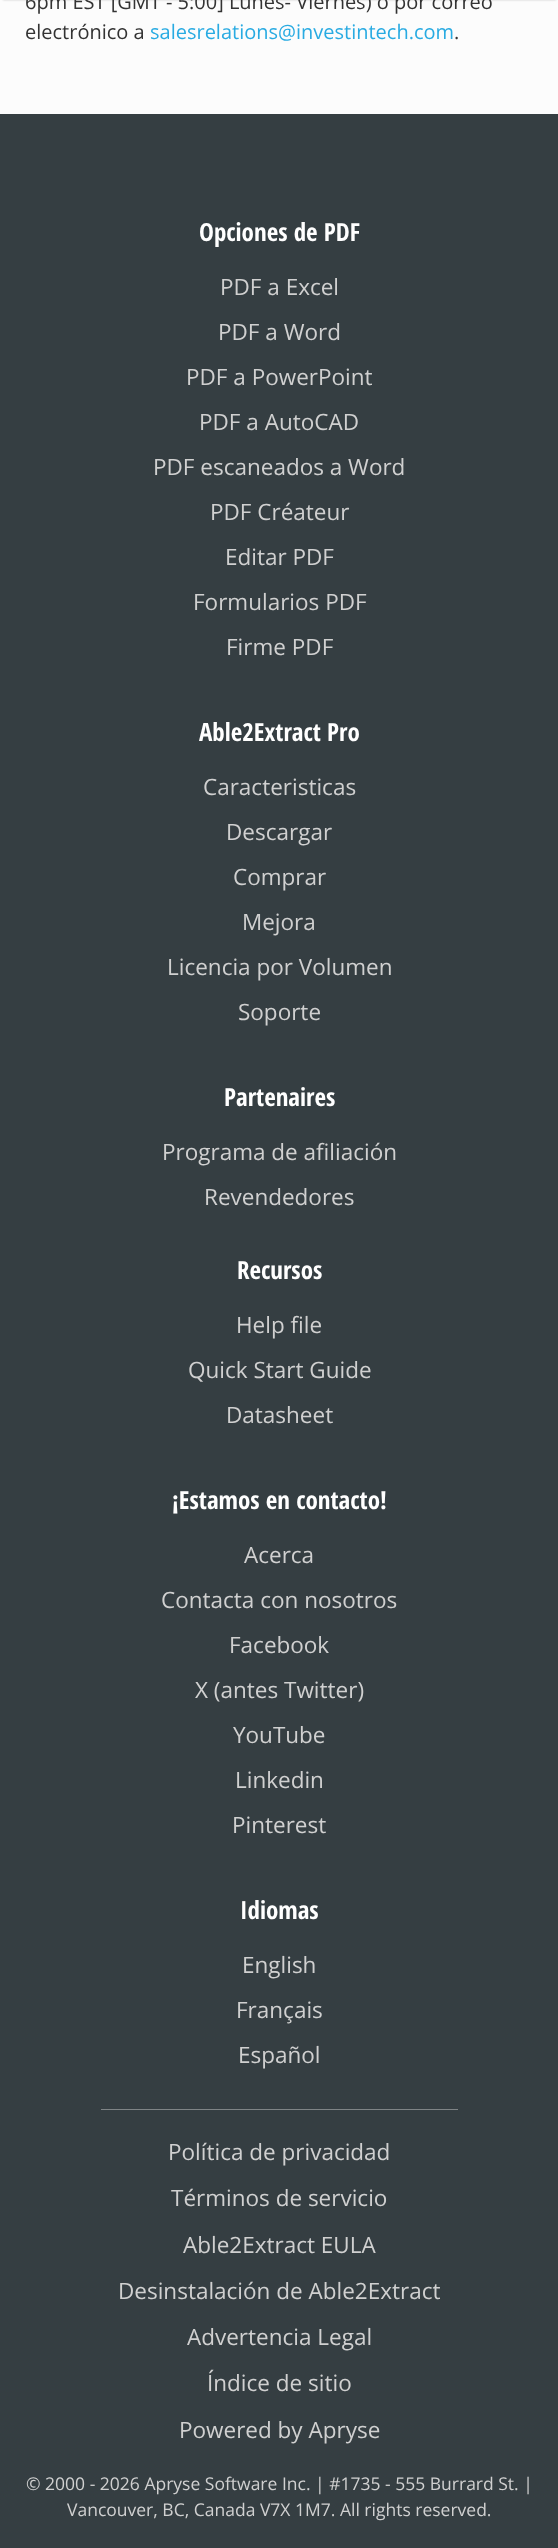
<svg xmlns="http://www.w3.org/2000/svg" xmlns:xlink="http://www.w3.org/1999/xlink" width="558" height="2548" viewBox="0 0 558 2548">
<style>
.cls-1{font:20px Open Sans;fill:#333333}
.cls-2{font:20px Open Sans;fill:#29abe2}
.cls-3{font:bold 25px Open Sans Condensed;fill:#ffffff}
.cls-4{font:22.5px Open Sans;fill:#d0d0d0}
.cls-5{font:17.5px Open Sans;fill:#d0d0d0}
</style>
<rect width="100%" height="100%" fill="#fcfcfc"/>
<rect fill="#000000" fill-opacity="0.2" filter="blur(1px)" x="3" y="-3" width="553" height="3"/>
<rect fill="#353e42" x="0" y="114" width="558" height="2434"/>
<rect fill="#7f8486" x="101" y="2109" width="357" height="1"/>
<text class="cls-1"><tspan x="25" y="9">6pm EST [GMT - 5:00] Lunes- Viernes) o por correo</tspan><tspan x="25" y="39">electrónico a</tspan></text>
<text class="cls-2" x="150" y="39">salesrelations@investintech.com</text>
<text class="cls-1" x="454" y="39">.</text>
<text class="cls-3" x="199" y="241">Opciones de PDF</text>
<text class="cls-4" x="220" y="295">PDF a Excel</text>
<text class="cls-4" x="218" y="340">PDF a Word</text>
<text class="cls-4" x="186" y="385">PDF a PowerPoint</text>
<text class="cls-4" x="199" y="430">PDF a AutoCAD</text>
<text class="cls-4" x="153" y="475">PDF escaneados a Word</text>
<text class="cls-4" x="210" y="520">PDF Créateur</text>
<text class="cls-4" x="225" y="565">Editar PDF</text>
<text class="cls-4" x="193" y="610">Formularios PDF</text>
<text class="cls-4" x="226" y="655">Firme PDF</text>
<text class="cls-3" x="199" y="741">Able2Extract Pro</text>
<text class="cls-4" x="203" y="795">Caracteristicas</text>
<text class="cls-4" x="226" y="840">Descargar</text>
<text class="cls-4" x="233" y="885">Comprar</text>
<text class="cls-4" x="242" y="930">Mejora</text>
<text class="cls-4" x="167" y="975">Licencia por Volumen</text>
<text class="cls-4" x="238" y="1020">Soporte</text>
<text class="cls-3" x="224" y="1106">Partenaires</text>
<text class="cls-4" x="162" y="1160">Programa de afiliación</text>
<text class="cls-4" x="204" y="1205">Revendedores</text>
<text class="cls-3" x="237" y="1279">Recursos</text>
<text class="cls-4" x="236" y="1333">Help file</text>
<text class="cls-4" x="188" y="1378">Quick Start Guide</text>
<text class="cls-4" x="226" y="1423">Datasheet</text>
<text class="cls-3" x="172" y="1509">¡Estamos en contacto!</text>
<text class="cls-4" x="244" y="1563">Acerca</text>
<text class="cls-4" x="161" y="1608">Contacta con nosotros</text>
<text class="cls-4" x="229" y="1653">Facebook</text>
<text class="cls-4" x="195" y="1698">X (antes Twitter)</text>
<text class="cls-4" x="233" y="1743">YouTube</text>
<text class="cls-4" x="235" y="1788">Linkedin</text>
<text class="cls-4" x="232" y="1833">Pinterest</text>
<text class="cls-3" x="240" y="1919">Idiomas</text>
<text class="cls-4" x="242" y="1973">English</text>
<text class="cls-4" x="236" y="2018">Français</text>
<text class="cls-4" x="238" y="2063">Español</text>
<text class="cls-4" x="168" y="2160">Política de privacidad</text>
<text class="cls-4" x="171" y="2206">Términos de servicio</text>
<text class="cls-4" x="183" y="2253">Able2Extract EULA</text>
<text class="cls-4" x="118" y="2299">Desinstalación de Able2Extract</text>
<text class="cls-4" x="187" y="2345">Advertencia Legal</text>
<text class="cls-4" x="207" y="2391">Índice de sitio</text>
<text class="cls-4" x="179" y="2438">Powered by Apryse</text>
<text class="cls-5" x="26" y="2490">© 2000 - 2026 Apryse Software Inc. | #1735 - 555 Burrard St. |</text>
<text class="cls-5" x="67" y="2516">Vancouver, BC, Canada V7X 1M7. All rights reserved.</text>
</svg>
